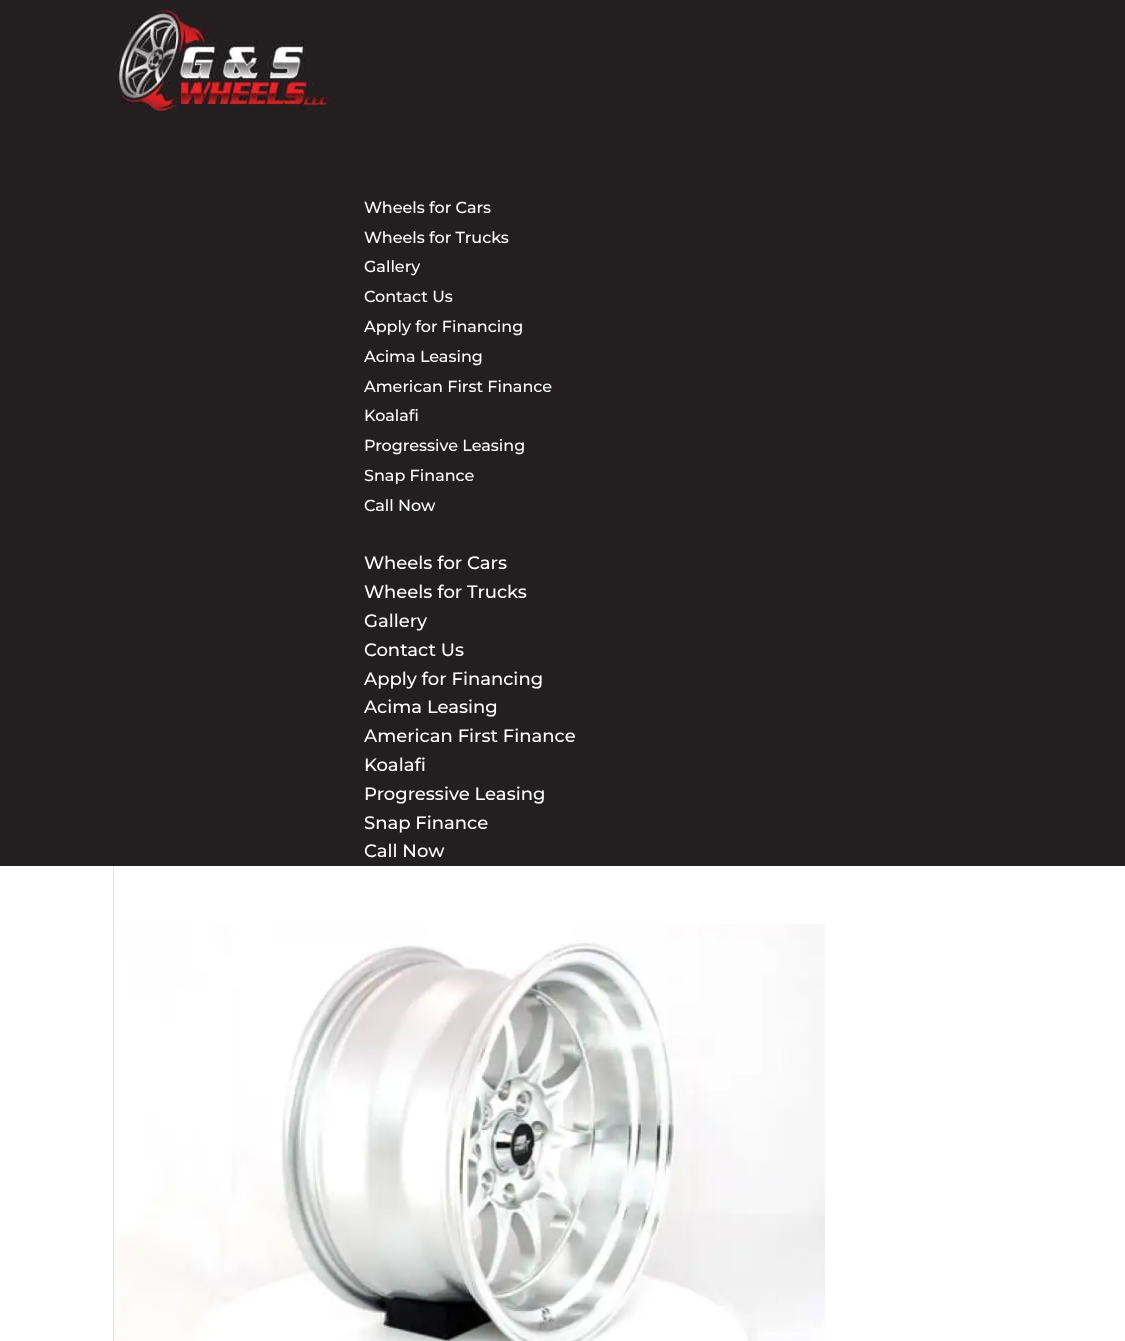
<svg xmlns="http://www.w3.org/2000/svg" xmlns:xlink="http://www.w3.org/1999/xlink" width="1125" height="1341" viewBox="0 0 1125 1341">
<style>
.cls-1{font:100 16px Montserrat;fill:#ffffff}
.cls-2{font:100 18px Montserrat;fill:#ffffff}
</style>
<rect width="100%" height="100%" fill="#ffffff"/>
<rect fill="#231f20" x="0" y="0" width="1125" height="866"/>
<image xlink:href="image0.png" x="113" y="0" width="221" height="112"/>
<rect fill="#e2e2e2" x="113" y="866" width="1" height="475"/>
<image xlink:href="image1.png" x="114" y="924" width="711" height="417"/>
<text class="cls-1"><tspan x="364" y="213">Wheels for Cars</tspan><tspan x="364" y="243">Wheels for Trucks</tspan><tspan x="364" y="272">Gallery</tspan><tspan x="364" y="302">Contact Us</tspan><tspan x="364" y="332">Apply for Financing</tspan><tspan x="364" y="362">Acima Leasing</tspan><tspan x="364" y="392">American First Finance</tspan><tspan x="364" y="421">Koalafi</tspan><tspan x="364" y="451">Progressive Leasing</tspan><tspan x="364" y="481">Snap Finance</tspan><tspan x="364" y="511">Call Now</tspan></text>
<text class="cls-2"><tspan x="364" y="569">Wheels for Cars</tspan><tspan x="364" y="598">Wheels for Trucks</tspan><tspan x="364" y="627">Gallery</tspan><tspan x="364" y="656">Contact Us</tspan><tspan x="364" y="685">Apply for Financing</tspan><tspan x="364" y="713">Acima Leasing</tspan><tspan x="364" y="742">American First Finance</tspan><tspan x="364" y="771">Koalafi</tspan><tspan x="364" y="800">Progressive Leasing</tspan><tspan x="364" y="829">Snap Finance</tspan><tspan x="364" y="857">Call Now</tspan></text>
</svg>
